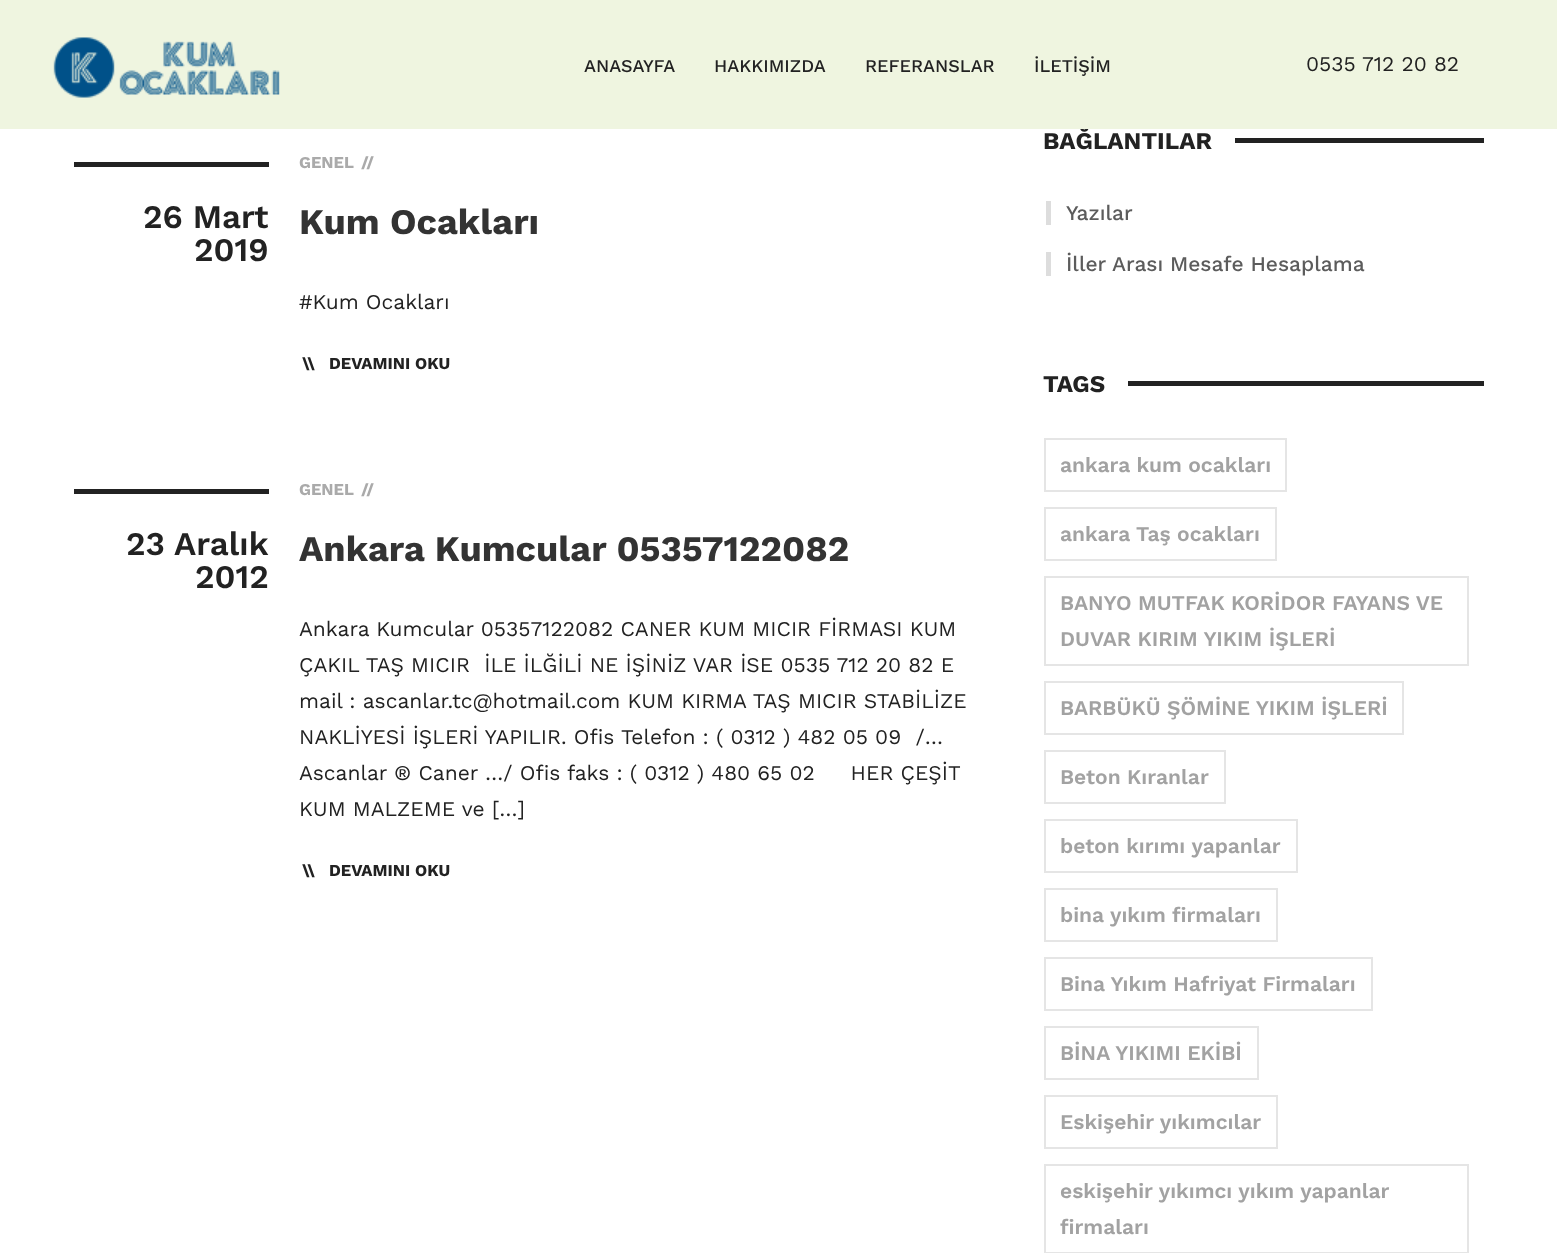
<svg xmlns="http://www.w3.org/2000/svg" xmlns:xlink="http://www.w3.org/1999/xlink" width="1557" height="1253" viewBox="0 0 1557 1253">
<style>
.cls-1{font:600 33px Work Sans;fill:#222222}
.cls-2{font:bold 16.5px Work Sans;fill:#aaaaaa}
.cls-3{font:bold 36px Work Sans;fill:#333333}
.cls-4{font:21px Work Sans;fill:#222222}
.cls-5{font:bold 16.5px Work Sans;fill:#222222}
.cls-6{font:bold 24px Work Sans;fill:#222222}
.cls-7{font:500 18px Work Sans;fill:#222222}
.cls-8{font:500 21px Work Sans;fill:#5c5c5c}
.cls-9{font:600 21px Work Sans;fill:#a2a2a2}
</style>
<rect width="100%" height="100%" fill="#ffffff"/>
<rect fill="#222222" x="74" y="162" width="195" height="5"/>
<rect fill="#222222" x="74" y="489" width="195" height="5"/>
<rect fill="#222222" x="1235" y="138" width="249" height="5"/>
<rect fill="#dddddd" x="1046" y="201" width="5" height="24"/>
<rect fill="#dddddd" x="1046" y="252" width="5" height="24"/>
<rect fill="#222222" x="1128" y="381" width="356" height="5"/>
<rect fill="none" stroke="#e5e5e5" stroke-width="2" x="1045" y="439" width="241" height="52"/>
<rect fill="none" stroke="#e5e5e5" stroke-width="2" x="1045" y="508" width="231" height="52"/>
<rect fill="none" stroke="#e5e5e5" stroke-width="2" x="1045" y="577" width="423" height="88"/>
<rect fill="none" stroke="#e5e5e5" stroke-width="2" x="1045" y="682" width="358" height="52"/>
<rect fill="none" stroke="#e5e5e5" stroke-width="2" x="1045" y="751" width="180" height="52"/>
<rect fill="none" stroke="#e5e5e5" stroke-width="2" x="1045" y="820" width="252" height="52"/>
<rect fill="none" stroke="#e5e5e5" stroke-width="2" x="1045" y="889" width="232" height="52"/>
<rect fill="none" stroke="#e5e5e5" stroke-width="2" x="1045" y="958" width="327" height="52"/>
<rect fill="none" stroke="#e5e5e5" stroke-width="2" x="1045" y="1027" width="213" height="52"/>
<rect fill="none" stroke="#e5e5e5" stroke-width="2" x="1045" y="1096" width="232" height="52"/>
<rect fill="none" stroke="#e5e5e5" stroke-width="2" x="1045" y="1165" width="423" height="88"/>
<text class="cls-1" x="143" y="228">26 Mart</text>
<text class="cls-1" x="194" y="261">2019</text>
<text class="cls-2" x="299" y="168">GENEL</text>
<text class="cls-2" x="361" y="168">//</text>
<text class="cls-3" x="299" y="234">Kum Ocakları</text>
<text class="cls-4" x="299" y="309">#Kum Ocakları</text>
<text class="cls-5" x="302" y="369">\\</text>
<text class="cls-5" x="329" y="369">DEVAMINI OKU</text>
<text class="cls-1" x="126" y="555">23 Aralık</text>
<text class="cls-1" x="195" y="588">2012</text>
<text class="cls-2" x="299" y="495">GENEL</text>
<text class="cls-2" x="361" y="495">//</text>
<text class="cls-3" x="299" y="561">Ankara Kumcular 05357122082</text>
<text class="cls-4" xml:space="preserve"><tspan x="299" y="636">Ankara Kumcular 05357122082 CANER KUM MICIR FİRMASI KUM</tspan><tspan x="299" y="672">ÇAKIL TAŞ MICIR  İLE İLĞİLİ NE İŞİNİZ VAR İSE 0535 712 20 82 E</tspan><tspan x="299" y="708">mail : ascanlar.tc@hotmail.com KUM KIRMA TAŞ MICIR STABİLİZE</tspan><tspan x="299" y="744">NAKLİYESİ İŞLERİ YAPILIR. Ofis Telefon : ( 0312 ) 482 05 09  /…</tspan><tspan x="299" y="780">Ascanlar ® Caner …/ Ofis faks : ( 0312 ) 480 65 02     HER ÇEŞİT</tspan><tspan x="299" y="816">KUM MALZEME ve […]</tspan></text>
<text class="cls-5" x="302" y="876">\\</text>
<text class="cls-5" x="329" y="876">DEVAMINI OKU</text>
<text class="cls-6" x="1043" y="149">BAĞLANTILAR</text>
<rect fill="#eff5e0" x="0" y="0" width="1557" height="129"/>
<text class="cls-7" x="1034" y="72">İLETİŞİM</text>
<text class="cls-7" x="865" y="72">REFERANSLAR</text>
<text class="cls-7" x="714" y="72">HAKKIMIZDA</text>
<text class="cls-7" x="584" y="72">ANASAYFA</text>
<text class="cls-4" x="1306" y="71">0535 712 20 82</text>
<image xlink:href="image0.png" x="53" y="37" width="227" height="61"/>
<text class="cls-8" x="1066" y="220">Yazılar</text>
<text class="cls-8" x="1066" y="271">İller Arası Mesafe Hesaplama</text>
<text class="cls-6" x="1043" y="392">TAGS</text>
<text class="cls-9" x="1060" y="472">ankara kum ocakları</text>
<text class="cls-9" x="1060" y="541">ankara Taş ocakları</text>
<text class="cls-9"><tspan x="1060" y="610">BANYO MUTFAK KORİDOR FAYANS VE</tspan><tspan x="1060" y="646">DUVAR KIRIM YIKIM İŞLERİ</tspan></text>
<text class="cls-9" x="1060" y="715">BARBÜKÜ ŞÖMİNE YIKIM İŞLERİ</text>
<text class="cls-9" x="1060" y="784">Beton Kıranlar</text>
<text class="cls-9" x="1060" y="853">beton kırımı yapanlar</text>
<text class="cls-9" x="1060" y="922">bina yıkım firmaları</text>
<text class="cls-9" x="1060" y="991">Bina Yıkım Hafriyat Firmaları</text>
<text class="cls-9" x="1060" y="1060">BİNA YIKIMI EKİBİ</text>
<text class="cls-9" x="1060" y="1129">Eskişehir yıkımcılar</text>
<text class="cls-9"><tspan x="1060" y="1198">eskişehir yıkımcı yıkım yapanlar</tspan><tspan x="1060" y="1234">firmaları</tspan></text>
</svg>
